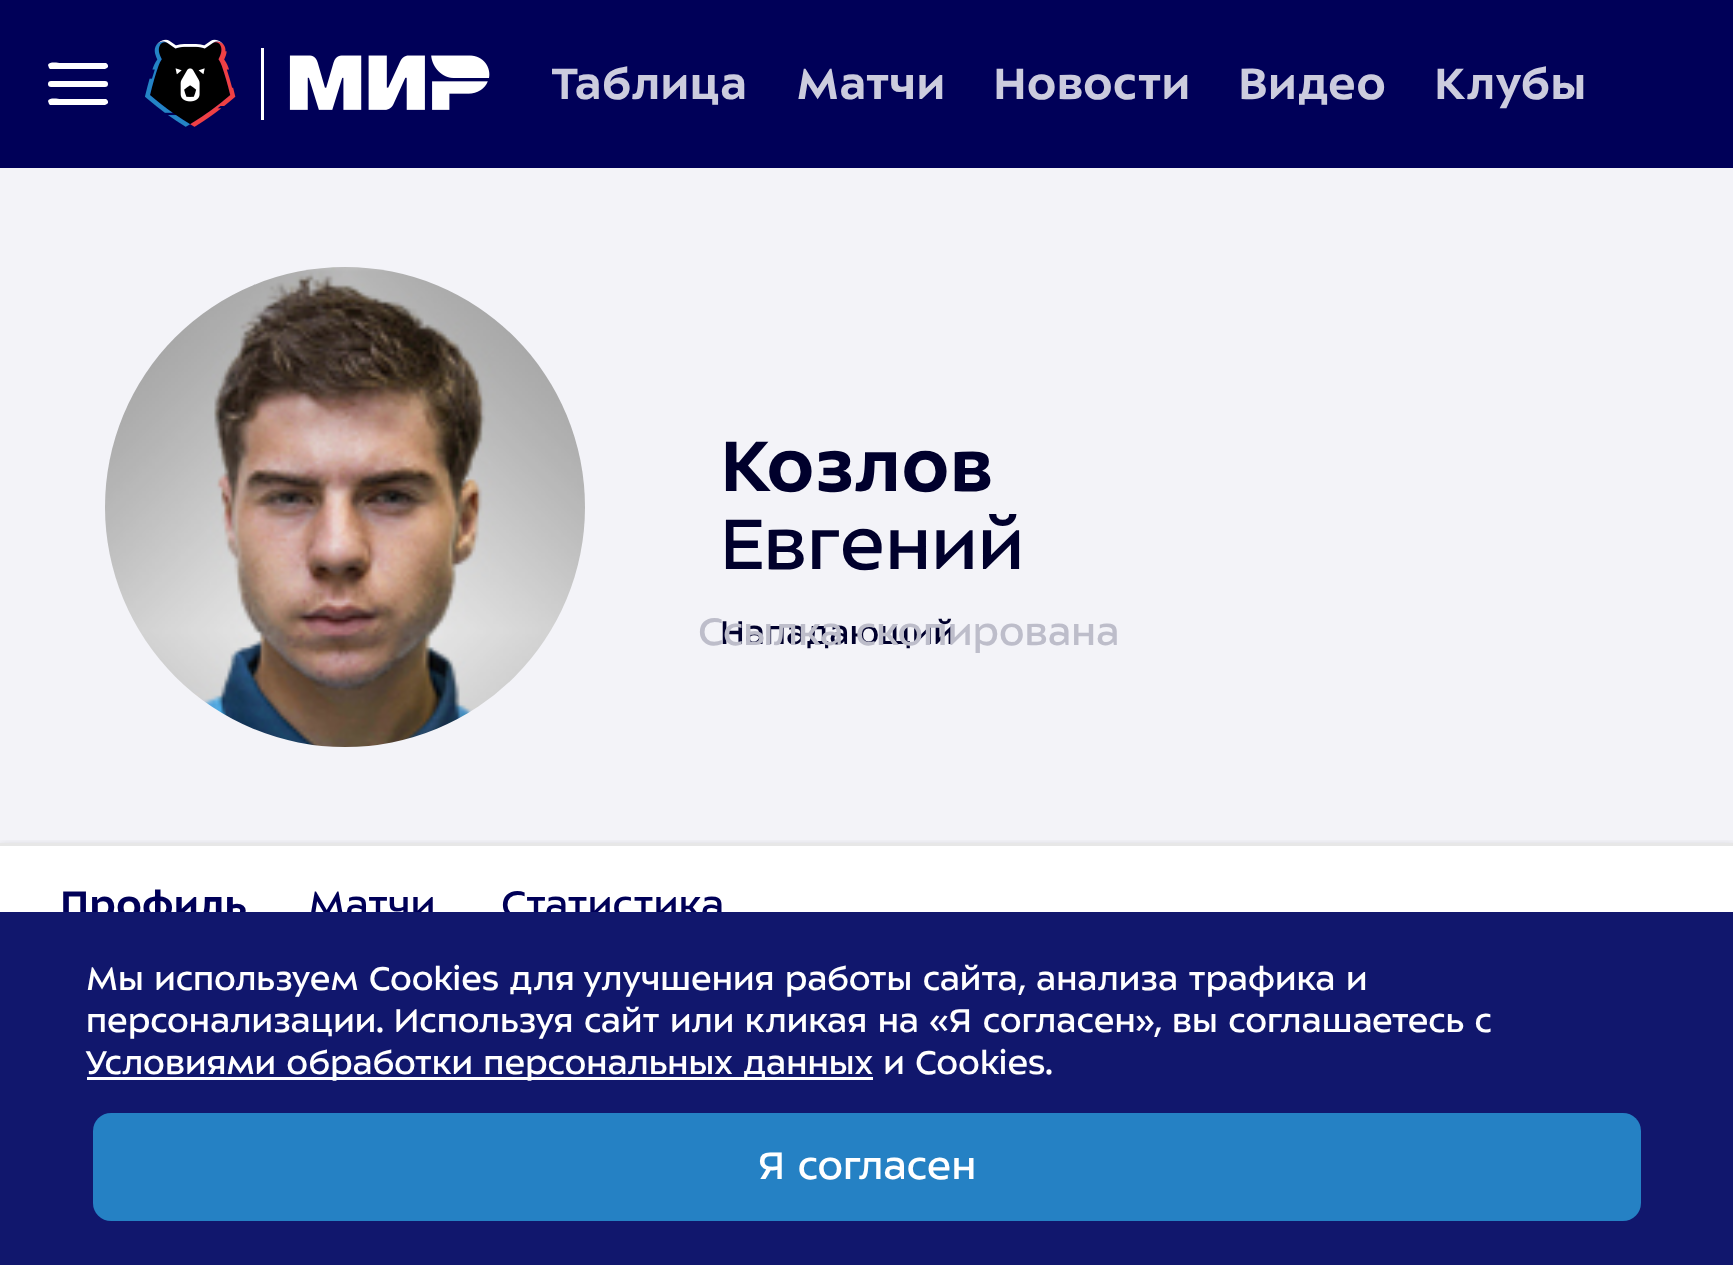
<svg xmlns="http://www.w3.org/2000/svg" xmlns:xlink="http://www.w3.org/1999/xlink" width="1733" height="1265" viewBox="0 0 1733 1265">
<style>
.cls-1{font:bold 48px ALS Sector;fill:#ccccde}
.cls-2{font:bold 78px ALS Sector;fill:#00002c}
.cls-3{font:78px ALS Sector;fill:#00002c}
.cls-4{font:36px ALS Sector;fill:#00002c}
.cls-5{font:bold 42px ALS Sector;fill:#000058}
.cls-6{font:42px ALS Sector;fill:#000058}
.cls-7{font:42px ALS Sector;fill:#bdbdca}
.cls-8{font:36px ALS Sector;fill:#ffffff}
.cls-9{font:42px ALS Sector;fill:#ffffff}
</style>
<defs>
<clipPath id="clip1"><rect x="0" y="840" width="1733" height="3"/></clipPath>
</defs>
<rect width="100%" height="100%" fill="#ffffff"/>
<rect fill="#000058" x="0" y="0" width="1733" height="168"/>
<path fill="#ffffff" d="M105 69H50L49 68L48 65C49 61 59 63 60 63H106C108 64 109 67 107 68Z"/>
<rect fill="#ffffff" x="48" y="81" width="60" height="6" rx="3"/>
<path fill="#ffffff" d="M105 105H50L49 104L48 101C49 97 59 99 60 99H106C108 100 109 103 107 104Z"/>
<image xlink:href="image0.png" x="145" y="39" width="91" height="88"/>
<rect fill="#ffffff" x="261" y="48" width="3" height="72"/>
<image xlink:href="image1.png" x="289" y="55" width="201" height="55"/>
<rect fill="#f3f3f8" x="0" y="168" width="1733" height="675"/>
<image xlink:href="image2.png" x="105" y="267" width="480" height="480"/>
<g clip-path="url(#clip1)">
<rect fill="#000000" fill-opacity="0.2" filter="blur(4.5px)" x="0" y="846" width="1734" height="123"/>
</g>
<rect fill="#e7e7e7" x="0" y="843" width="1733" height="3"/>
<text class="cls-1" x="552" y="99">Таблица</text>
<text class="cls-1" x="796" y="99">Матчи</text>
<text class="cls-1" x="993" y="99">Новости</text>
<text class="cls-1" x="1238" y="99">Видео</text>
<text class="cls-1" x="1434" y="99">Клубы</text>
<text class="cls-2" x="720" y="491">Козлов</text>
<text class="cls-3" x="720" y="569">Евгений</text>
<text class="cls-4" x="720" y="644">Нападающий</text>
<text class="cls-5" x="60" y="918">Профиль</text>
<text class="cls-6" x="308" y="918">Матчи</text>
<text class="cls-6" x="501" y="918">Статистика</text>
<text class="cls-7" x="698" y="645">Ссылка скопирована</text>
<rect fill="#11176d" x="0" y="912" width="1733" height="353"/>
<text class="cls-8"><tspan x="86" y="990">Мы используем Cookies для улучшения работы сайта, анализа трафика и</tspan><tspan x="86" y="1032">персонализации. Используя сайт или кликая на «Я согласен», вы соглашаетесь с</tspan></text>
<rect fill="#ffffff" x="87" y="1077" width="786" height="3"/>
<text class="cls-8" x="86" y="1074">Условиями обработки персональных данных и Cookies.</text>
<rect fill="#2581c4" x="93" y="1113" width="1548" height="108" rx="18"/>
<text class="cls-9" x="758" y="1179">Я согласен</text>
</svg>
